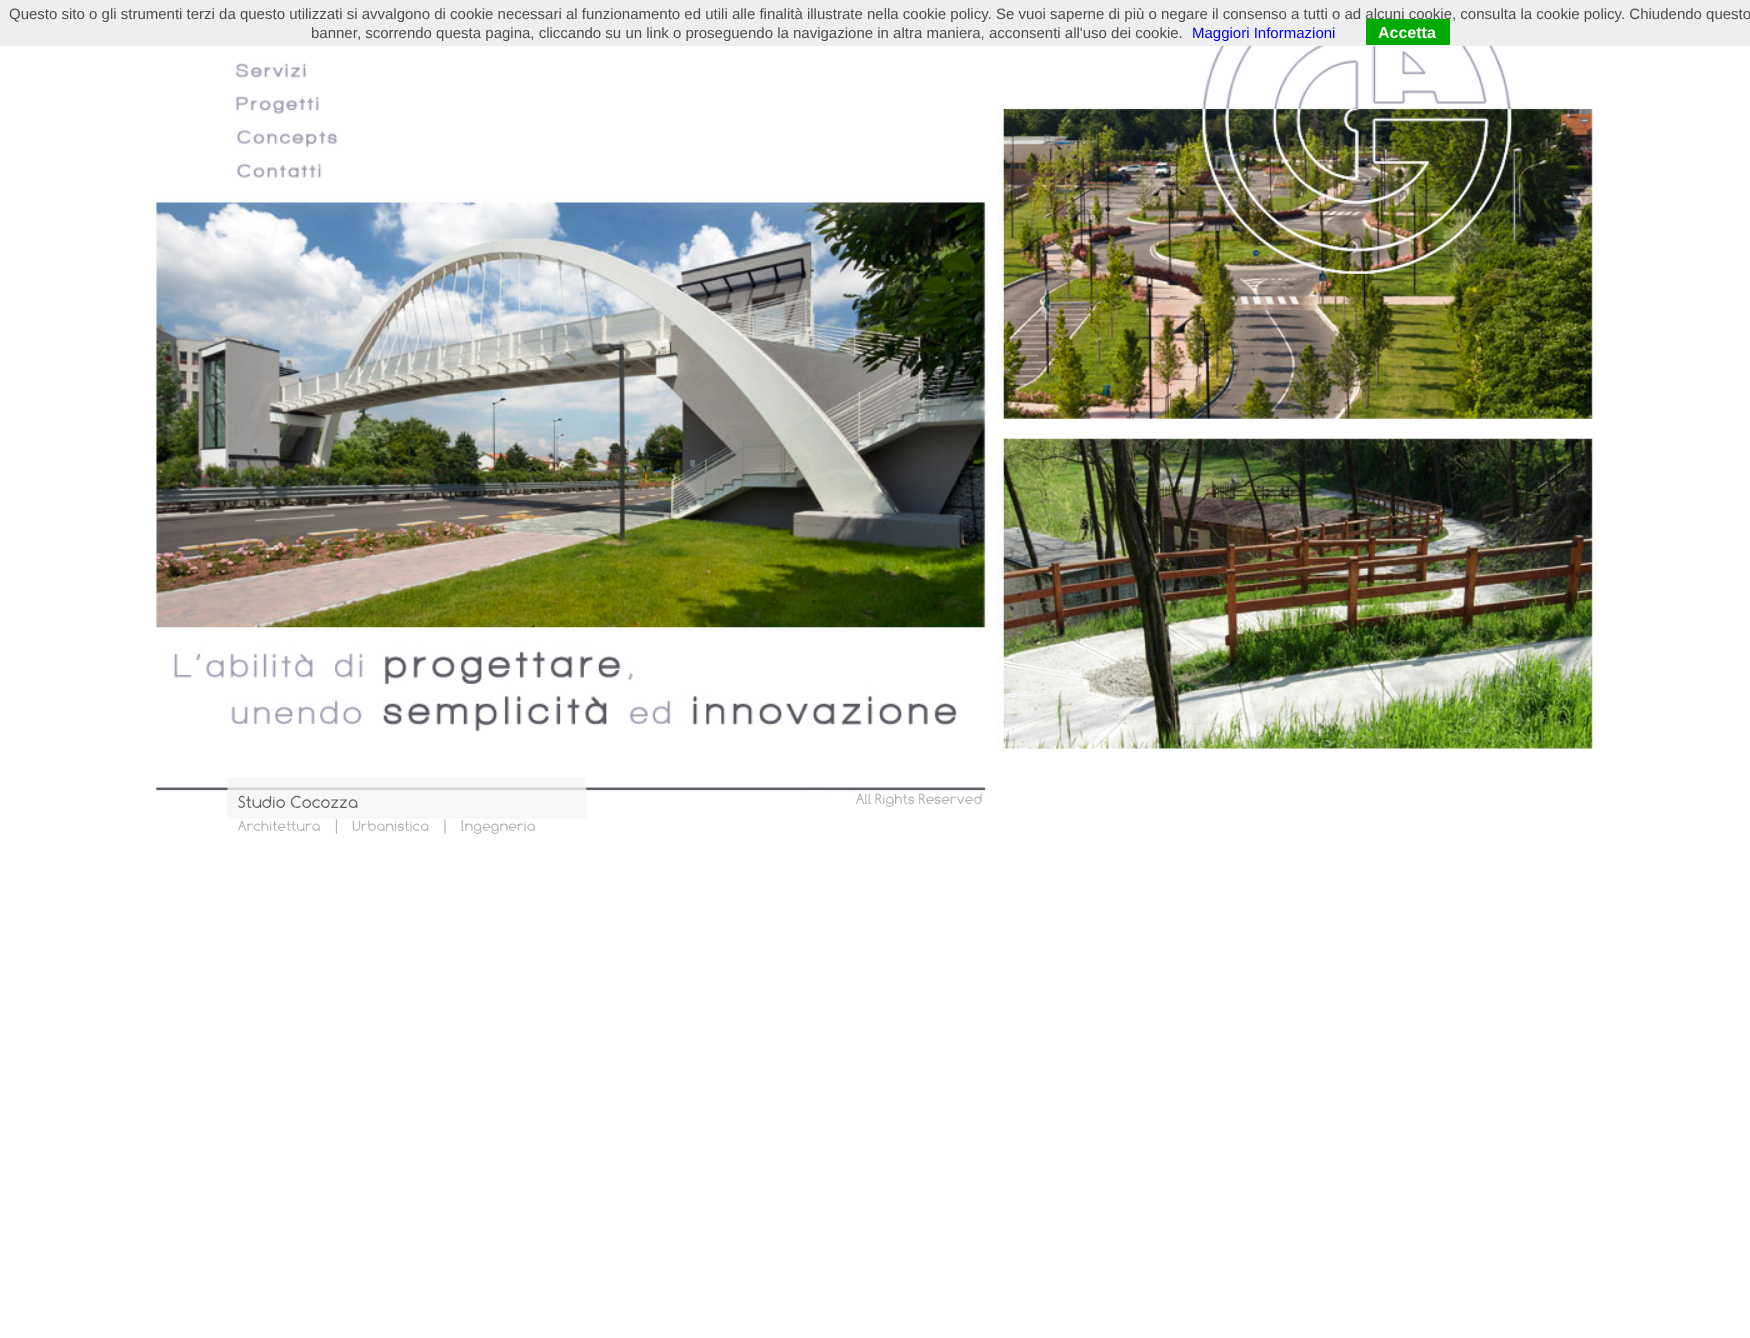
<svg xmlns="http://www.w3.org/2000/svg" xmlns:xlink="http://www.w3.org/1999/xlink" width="1750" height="1338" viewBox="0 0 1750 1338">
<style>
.cls-1{font:15px Liberation Sans;fill:#4d4d4d}
.cls-2{font:15px Liberation Sans;fill:#0000ee}
.cls-3{font:bold 16px Liberation Sans;fill:#ffffff}
.cls-4{font:17.5px Comfortaa;fill:#626262}
.cls-5{font:15px Comfortaa;fill:#b1b1b3}
</style>
<rect width="100%" height="100%" fill="#ffffff"/>
<rect fill="#eeeeee" x="0" y="0" width="1750" height="46"/>
<image xlink:href="image0.png" x="236" y="63" width="71" height="15"/>
<image xlink:href="image3.png" x="156" y="108" width="1437" height="641"/>
<image xlink:href="image1.png" x="1202" y="46" width="310" height="228"/>
<image xlink:href="image2.png" x="236" y="96" width="83" height="19"/>
<image xlink:href="image4.png" x="237" y="129" width="101" height="19"/>
<image xlink:href="image5.png" x="237" y="163" width="85" height="17"/>
<image xlink:href="image6.png" x="156" y="627" width="830" height="105"/>
<image xlink:href="image7.png" x="156" y="777" width="830" height="42"/>
<text class="cls-1" x="9" y="19">Questo sito o gli strumenti terzi da questo utilizzati si avvalgono di cookie necessari al funzionamento ed utili alle finalità illustrate nella cookie policy. Se vuoi saperne di più o negare il consenso a tutti o ad alcuni cookie, consulta la cookie policy. Chiudendo questo</text>
<text class="cls-1" x="311" y="38">banner, scorrendo questa pagina, cliccando su un link o proseguendo la navigazione in altra maniera, acconsenti all'uso dei cookie.</text>
<text class="cls-2" x="1192" y="38">Maggiori Informazioni</text>
<rect fill="#00aa00" x="1366" y="19" width="84" height="26" rx="1"/>
<text class="cls-3" x="1378" y="38">Accetta</text>
<text class="cls-4" x="238" y="808">Studio Cocozza</text>
<text class="cls-5" x="856" y="804">All Rights Reserved</text>
<text class="cls-5" x="238" y="831">Architettura | Urbanistica | Ingegneria</text>
</svg>
